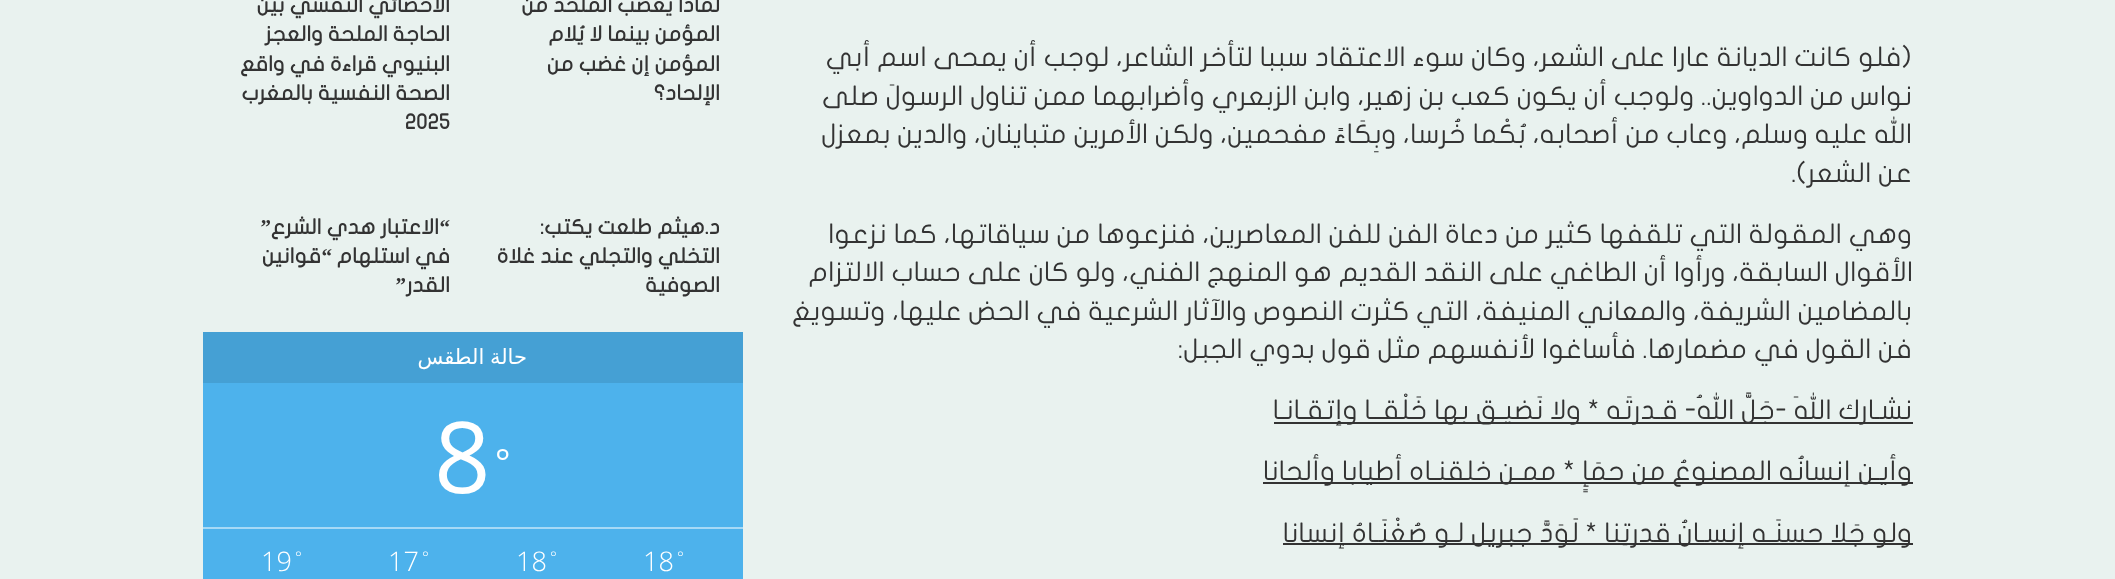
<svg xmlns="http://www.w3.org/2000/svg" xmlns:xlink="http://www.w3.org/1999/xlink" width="2115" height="579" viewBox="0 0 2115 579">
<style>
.cls-1{font:27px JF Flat;direction:rtl;fill:#333333}
.cls-2{font:bold 21px JF Flat;direction:rtl;fill:#333333}
.cls-3{font:bold 21px JF Flat;fill:#333333}
.cls-4{font:bold 21px Liberation Serif;direction:rtl;fill:#333333}
.cls-5{font:21px DejaVu Sans;direction:rtl;fill:#ffffff}
.cls-6{font:36px Open Sans;fill:#ffffff}
.cls-7{font:99px Open Sans;fill:#ffffff}
.cls-8{font:300 16px Open Sans;fill:#ffffff}
.cls-9{font:300 27px Open Sans;fill:#ffffff}
</style>
<rect width="100%" height="100%" fill="#e9f2ef"/>
<rect fill="#333333" x="1274" y="422" width="639" height="2"/>
<rect fill="#333333" x="1263" y="482" width="650" height="2"/>
<rect fill="#333333" x="1283" y="543" width="630" height="2"/>
<rect fill="#4db2ec" x="203" y="383" width="540" height="196"/>
<rect fill="#45a0d4" x="203" y="332" width="540" height="51"/>
<rect fill="#a6d9f6" x="203" y="527" width="540" height="2"/>
<text class="cls-1"><tspan x="1912" y="66">(فلو كانت الديانة عارا على الشعر، وكان سوء الاعتقاد سببا لتأخر الشاعر، لوجب أن يمحى اسم أبي</tspan><tspan x="1912" y="105">نواس من الدواوين.. ولوجب أن يكون كعب بن زهير، وابن الزبعري وأضرابهما ممن تناول الرسولَ صلى</tspan><tspan x="1912" y="143">الله عليه وسلم، وعاب من أصحابه، بُكْما خُرسا، وبِكَاءً مفحمين، ولكن الأمرين متباينان، والدين بمعزل</tspan><tspan x="1912" y="182">عن الشعر).</tspan></text>
<text class="cls-1" x="1912" y="243">وهي المقولة التي تلقفها كثير من دعاة الفن للفن المعاصرين، فنزعوها من سياقاتها، كما نزعوا</text>
<text class="cls-1" x="1913" y="281">الأقوال السابقة، ورأوا أن الطاغي على النقد القديم هو المنهج الفني، ولو كان على حساب الالتزام</text>
<text class="cls-1"><tspan x="1912" y="320">بالمضامين الشريفة، والمعاني المنيفة، التي كثرت النصوص والآثار الشرعية في الحض عليها، وتسويغ</tspan><tspan x="1912" y="358">فن القول في مضمارها. فأساغوا لأنفسهم مثل قول بدوي الجبل:</tspan></text>
<text class="cls-1" x="1912" y="419">نشـارك اللهَ -جَلَّ اللهُ- قـدرتَه * ولا نَضيـق بها خَلْقــا وإتقـانـا</text>
<text class="cls-1" x="1912" y="480">وأيـن إنسانُه المصنوعُ من حمَإٍ * ممـن خلقنـاه أطيابا وألحانا</text>
<text class="cls-1" x="1912" y="542">ولو جَلا حسنَـه إنسـانُ قدرتِنا * لَوَدَّ جبريل لـو صُغْنَـاهُ إنسانا</text>
<text class="cls-2"><tspan x="720" y="12">لماذا يغضب المُلحد من</tspan><tspan x="720" y="41">المؤمن بينما لا يُلام</tspan><tspan x="720" y="71">المؤمن إن غضب من</tspan><tspan x="720" y="100">الإلحاد؟</tspan></text>
<text class="cls-2"><tspan x="450" y="12">الأخصائي النفسي بين</tspan><tspan x="450" y="41">الحاجة الملحة والعجز</tspan><tspan x="450" y="71">البنيوي قراءة في واقع</tspan><tspan x="450" y="100">الصحة النفسية بالمغرب</tspan></text>
<text class="cls-3" x="405" y="129">2025</text>
<text class="cls-2"><tspan x="720" y="234">د.هيثم طلعت يكتب:</tspan><tspan x="720" y="263">التخلي والتجلي عند غلاة</tspan><tspan x="720" y="292">الصوفية</tspan></text>
<text class="cls-4" x="450" y="234">“</text>
<text class="cls-2" x="439" y="234">الاعتبار هدي الشرع</text>
<text class="cls-4" x="271" y="234">”</text>
<text class="cls-2" x="450" y="263">في استلهام</text>
<text class="cls-4" x="332" y="263">“</text>
<text class="cls-2" x="321" y="263">قوانين</text>
<text class="cls-4" x="406" y="292">”</text>
<text class="cls-2" x="450" y="292">القدر</text>
<text class="cls-5" x="527" y="364" word-spacing="-1">حالة الطقس</text>
<text class="cls-6" x="495" y="475">°</text>
<text class="cls-7" x="434" y="493">8</text>
<text class="cls-8" x="677" y="563">°</text>
<text class="cls-9" x="643" y="571">18</text>
<text class="cls-8" x="550" y="563">°</text>
<text class="cls-9" x="516" y="571">18</text>
<text class="cls-8" x="422" y="563">°</text>
<text class="cls-9" x="388" y="571">17</text>
<text class="cls-8" x="295" y="563">°</text>
<text class="cls-9" x="261" y="571">19</text>
</svg>
